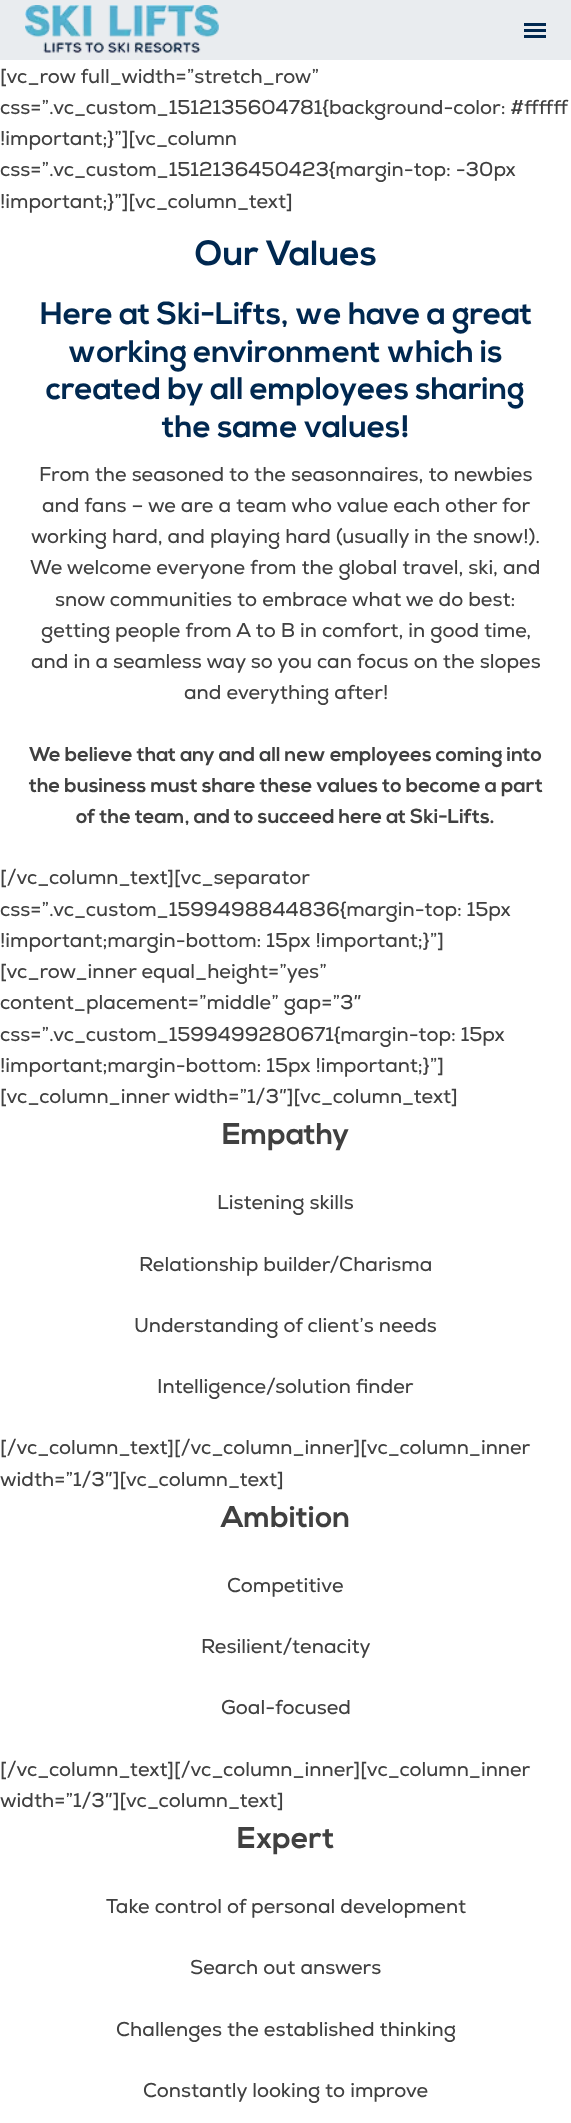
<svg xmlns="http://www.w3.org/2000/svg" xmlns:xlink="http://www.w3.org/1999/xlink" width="571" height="2123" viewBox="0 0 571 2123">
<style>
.cls-1{font:20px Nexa;fill:#404040}
.cls-2{font:bold 35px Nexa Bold;fill:#002850}
.cls-3{font:bold 31.25px Nexa Bold;fill:#002850}
.cls-4{font:bold 20px Nexa Bold;fill:#404040}
.cls-5{font:bold 30px Nexa Bold;fill:#404040}
</style>
<rect width="100%" height="100%" fill="#ffffff"/>
<rect fill="#e9ecef" x="0" y="0" width="571" height="60"/>
<image xlink:href="image0.png" x="25" y="5" width="194" height="48"/>
<rect fill="#002850" x="524" y="29" width="22" height="3"/>
<rect fill="#002850" x="524" y="23" width="22" height="3"/>
<rect fill="#002850" x="524" y="35" width="22" height="3"/>
<text class="cls-1"><tspan x="0" y="83">[vc_row full_width=”stretch_row”</tspan><tspan x="0" y="114">css=”.vc_custom_1512135604781{background-color: #ffffff</tspan><tspan x="0" y="145">!important;}”][vc_column</tspan><tspan x="0" y="176">css=”.vc_custom_1512136450423{margin-top: -30px</tspan><tspan x="0" y="208">!important;}”][vc_column_text]</tspan></text>
<text class="cls-2" x="195" y="265">Our Values</text>
<text class="cls-3" x="40" y="324">Here at Ski-Lifts, we have a great</text>
<text class="cls-3" x="68" y="362">working environment which is</text>
<text class="cls-3" x="46" y="399">created by all employees sharing</text>
<text class="cls-3" x="162" y="437">the same values!</text>
<text class="cls-1" x="39" y="481">From the seasoned to the seasonnaires, to newbies</text>
<text class="cls-1" x="42" y="512">and fans – we are a team who value each other for</text>
<text class="cls-1" x="31" y="543">working hard, and playing hard (usually in the snow!).</text>
<text class="cls-1" x="30" y="574">We welcome everyone from the global travel, ski, and</text>
<text class="cls-1" x="55" y="606">snow communities to embrace what we do best:</text>
<text class="cls-1" x="41" y="637">getting people from A to B in comfort, in good time,</text>
<text class="cls-1" x="31" y="668">and in a seamless way so you can focus on the slopes</text>
<text class="cls-1" x="184" y="699">and everything after!</text>
<text class="cls-4"><tspan x="29" y="761">We believe that any and all new employees coming into</tspan><tspan x="29" y="792">the business must share these values to become a part</tspan></text>
<text class="cls-4" x="76" y="823">of the team, and to succeed here at Ski-Lifts.</text>
<text class="cls-1"><tspan x="0" y="884">[/vc_column_text][vc_separator</tspan><tspan x="0" y="916">css=”.vc_custom_1599498844836{margin-top: 15px</tspan><tspan x="0" y="947">!important;margin-bottom: 15px !important;}”]</tspan><tspan x="0" y="978">[vc_row_inner equal_height=”yes”</tspan><tspan x="0" y="1009">content_placement=”middle” gap=”3″</tspan><tspan x="0" y="1041">css=”.vc_custom_1599499280671{margin-top: 15px</tspan><tspan x="0" y="1072">!important;margin-bottom: 15px !important;}”]</tspan><tspan x="0" y="1103">[vc_column_inner width=”1/3″][vc_column_text]</tspan></text>
<text class="cls-5" x="222" y="1144">Empathy</text>
<text class="cls-1" x="217" y="1209">Listening skills</text>
<text class="cls-1" x="139" y="1271">Relationship builder/Charisma</text>
<text class="cls-1" x="134" y="1332">Understanding of client’s needs</text>
<text class="cls-1" x="157" y="1393">Intelligence/solution finder</text>
<text class="cls-1"><tspan x="0" y="1454">[/vc_column_text][/vc_column_inner][vc_column_inner</tspan><tspan x="0" y="1486">width=”1/3″][vc_column_text]</tspan></text>
<text class="cls-5" x="221" y="1527">Ambition</text>
<text class="cls-1" x="227" y="1592">Competitive</text>
<text class="cls-1" x="201" y="1653">Resilient/tenacity</text>
<text class="cls-1" x="221" y="1714">Goal-focused</text>
<text class="cls-1"><tspan x="0" y="1776">[/vc_column_text][/vc_column_inner][vc_column_inner</tspan><tspan x="0" y="1807">width=”1/3″][vc_column_text]</tspan></text>
<text class="cls-5" x="237" y="1848">Expert</text>
<text class="cls-1" x="106" y="1913">Take control of personal development</text>
<text class="cls-1" x="190" y="1974">Search out answers</text>
<text class="cls-1" x="116" y="2036">Challenges the established thinking</text>
<text class="cls-1" x="143" y="2097">Constantly looking to improve</text>
</svg>
